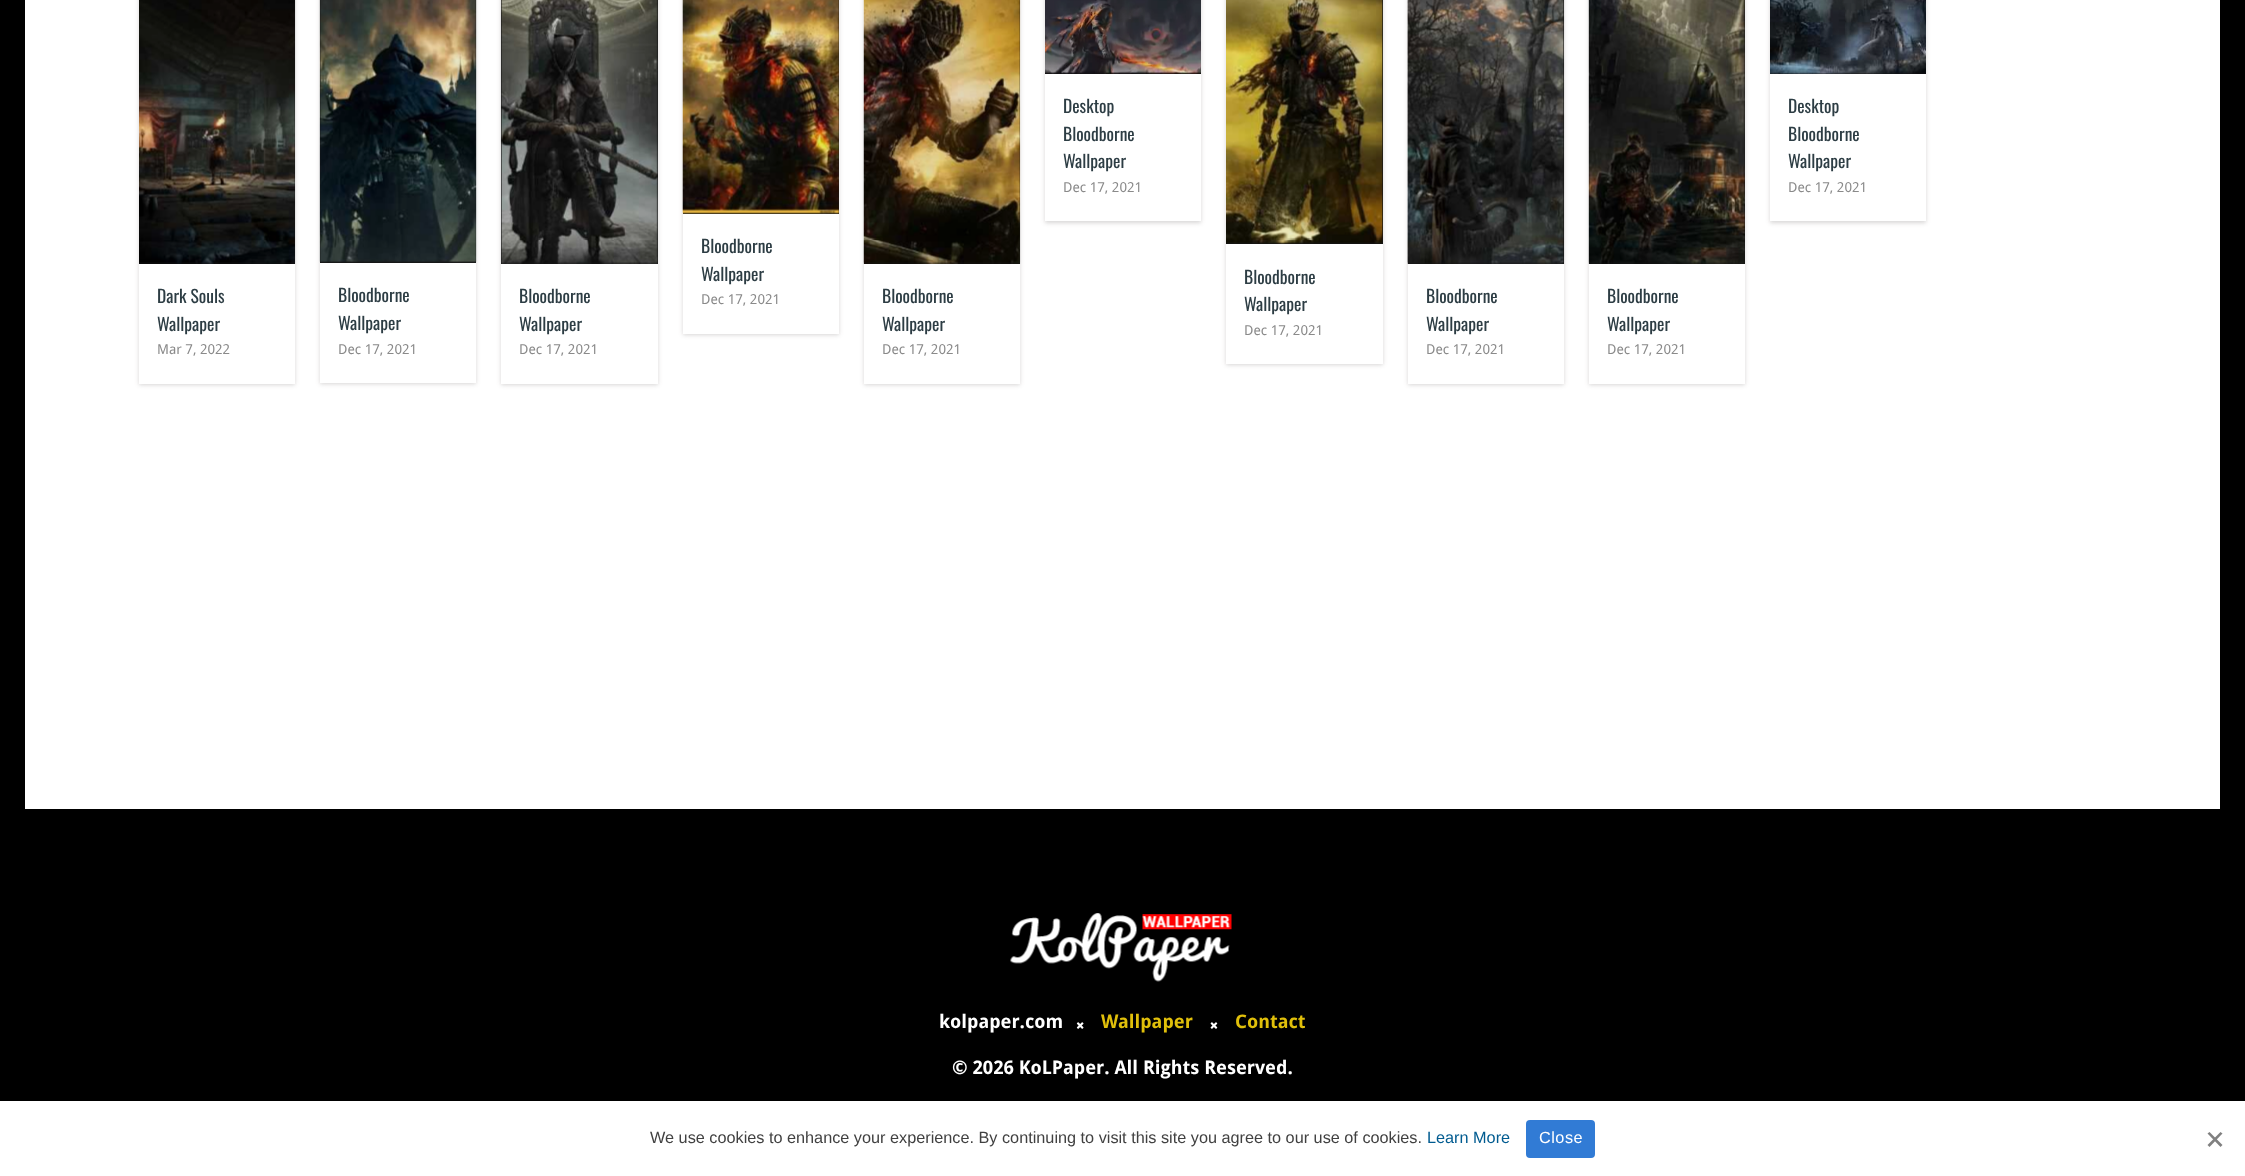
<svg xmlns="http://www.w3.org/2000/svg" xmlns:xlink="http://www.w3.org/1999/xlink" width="2245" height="1176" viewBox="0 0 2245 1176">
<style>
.cls-1{font:17.5px Oswald;fill:#2d3d44}
.cls-2{font:13.75px Droid Sans;fill:#8a8a8a}
.cls-3{font:bold 18.75px Droid Sans;fill:#ffffff}
.cls-4{font:bold 18.75px Droid Sans;fill:#e0bf0a}
.cls-5{font:16.25px Liberation Sans;fill:#414141}
.cls-6{font:16.25px Liberation Sans;fill:#005b90}
.cls-7{font:16.25px Liberation Sans;letter-spacing:0.5px;fill:#ffffff}
</style>
<defs>
<clipPath id="clip1"><path d="M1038 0H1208V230H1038ZM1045-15H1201V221H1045Z" clip-rule="evenodd"/></clipPath>
<clipPath id="clip2"><path d="M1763 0H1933V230H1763ZM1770-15H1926V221H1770Z" clip-rule="evenodd"/></clipPath>
</defs>
<rect width="100%" height="100%" fill="#000000"/>
<rect fill="#ffffff" x="25" y="0" width="2195" height="809"/>
<g clip-path="url(#clip1)">
<rect fill="#352d2d" fill-opacity="0.2" filter="blur(2px)" x="1045" y="-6" width="156" height="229"/>
</g>
<rect fill="#161616" x="1045" y="0" width="156" height="74"/>
<image xlink:href="image0.png" x="1045" y="0" width="156" height="74"/>
<g clip-path="url(#clip2)">
<rect fill="#352d2d" fill-opacity="0.2" filter="blur(2px)" x="1770" y="-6" width="156" height="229"/>
</g>
<rect fill="#161616" x="1770" y="0" width="156" height="74"/>
<image xlink:href="image1.png" x="1770" y="0" width="156" height="74"/>
<rect fill="#352d2d" fill-opacity="0.2" filter="blur(2px)" x="139" y="-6" width="156" height="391"/>
<rect fill="#ffffff" x="139" y="264" width="156" height="120"/>
<rect fill="#161616" x="139" y="0" width="156" height="264"/>
<image xlink:href="image2.png" x="139" y="0" width="157" height="264"/>
<rect fill="#352d2d" fill-opacity="0.2" filter="blur(2px)" x="320" y="-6" width="156" height="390"/>
<rect fill="#ffffff" x="320" y="263" width="156" height="120"/>
<rect fill="#161616" x="320" y="0" width="156" height="263"/>
<image xlink:href="image3.png" x="319" y="0" width="158" height="263"/>
<rect fill="#352d2d" fill-opacity="0.2" filter="blur(2px)" x="501" y="-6" width="157" height="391"/>
<rect fill="#ffffff" x="501" y="264" width="157" height="120"/>
<rect fill="#161616" x="501" y="0" width="157" height="264"/>
<image xlink:href="image4.png" x="500" y="0" width="158" height="264"/>
<rect fill="#352d2d" fill-opacity="0.2" filter="blur(2px)" x="683" y="-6" width="156" height="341"/>
<rect fill="#ffffff" x="683" y="214" width="156" height="120"/>
<rect fill="#161616" x="683" y="0" width="156" height="214"/>
<image xlink:href="image5.png" x="682" y="0" width="157" height="214"/>
<rect fill="#352d2d" fill-opacity="0.2" filter="blur(2px)" x="864" y="-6" width="156" height="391"/>
<rect fill="#ffffff" x="864" y="264" width="156" height="120"/>
<rect fill="#161616" x="864" y="0" width="156" height="264"/>
<image xlink:href="image6.png" x="863" y="0" width="158" height="264"/>
<rect fill="#352d2d" fill-opacity="0.2" filter="blur(2px)" x="1226" y="-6" width="157" height="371"/>
<rect fill="#ffffff" x="1226" y="244" width="157" height="120"/>
<rect fill="#161616" x="1226" y="0" width="157" height="244"/>
<image xlink:href="image7.png" x="1226" y="0" width="157" height="244"/>
<rect fill="#352d2d" fill-opacity="0.2" filter="blur(2px)" x="1408" y="-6" width="156" height="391"/>
<rect fill="#ffffff" x="1408" y="264" width="156" height="120"/>
<rect fill="#161616" x="1408" y="0" width="156" height="264"/>
<image xlink:href="image8.png" x="1407" y="0" width="158" height="264"/>
<rect fill="#352d2d" fill-opacity="0.2" filter="blur(2px)" x="1589" y="-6" width="156" height="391"/>
<rect fill="#ffffff" x="1589" y="264" width="156" height="120"/>
<rect fill="#161616" x="1589" y="0" width="156" height="264"/>
<image xlink:href="image9.png" x="1588" y="0" width="157" height="264"/>
<image xlink:href="image10.png" x="1010" y="913" width="222" height="69"/>
<image xlink:href="image11.png" x="1076" y="1022" width="8" height="7"/>
<image xlink:href="image12.png" x="1210" y="1022" width="8" height="7"/>
<rect fill="#000000" fill-opacity="0.5" filter="blur(31px)" x="0" y="1108" width="2245" height="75"/>
<rect fill="#ffffff" x="0" y="1101" width="2245" height="75"/>
<rect fill="#317bd5" x="1526" y="1120" width="69" height="38" rx="4"/>
<path fill="#808080" d="M2220.5 1132L2222.5 1133.5L2209.5 1147L2207.5 1145Z"/>
<path fill="#808080" d="M2207.5 1133.5L2209.5 1132L2222.5 1145L2220.5 1147Z"/>
<text class="cls-1"><tspan x="1063" y="113">Desktop</tspan><tspan x="1063" y="141">Bloodborne</tspan><tspan x="1063" y="168">Wallpaper</tspan></text>
<text class="cls-2" x="1063" y="192">Dec 17, 2021</text>
<text class="cls-1"><tspan x="1788" y="113">Desktop</tspan><tspan x="1788" y="141">Bloodborne</tspan><tspan x="1788" y="168">Wallpaper</tspan></text>
<text class="cls-2" x="1788" y="192">Dec 17, 2021</text>
<text class="cls-1"><tspan x="157" y="303">Dark Souls</tspan><tspan x="157" y="331">Wallpaper</tspan></text>
<text class="cls-2" x="157" y="354">Mar 7, 2022</text>
<text class="cls-1"><tspan x="338" y="302">Bloodborne</tspan><tspan x="338" y="330">Wallpaper</tspan></text>
<text class="cls-2" x="338" y="354">Dec 17, 2021</text>
<text class="cls-1"><tspan x="519" y="303">Bloodborne</tspan><tspan x="519" y="331">Wallpaper</tspan></text>
<text class="cls-2" x="519" y="354">Dec 17, 2021</text>
<text class="cls-1"><tspan x="701" y="253">Bloodborne</tspan><tspan x="701" y="281">Wallpaper</tspan></text>
<text class="cls-2" x="701" y="304">Dec 17, 2021</text>
<text class="cls-1"><tspan x="882" y="303">Bloodborne</tspan><tspan x="882" y="331">Wallpaper</tspan></text>
<text class="cls-2" x="882" y="354">Dec 17, 2021</text>
<text class="cls-1"><tspan x="1244" y="284">Bloodborne</tspan><tspan x="1244" y="311">Wallpaper</tspan></text>
<text class="cls-2" x="1244" y="335">Dec 17, 2021</text>
<text class="cls-1"><tspan x="1426" y="303">Bloodborne</tspan><tspan x="1426" y="331">Wallpaper</tspan></text>
<text class="cls-2" x="1426" y="354">Dec 17, 2021</text>
<text class="cls-1"><tspan x="1607" y="303">Bloodborne</tspan><tspan x="1607" y="331">Wallpaper</tspan></text>
<text class="cls-2" x="1607" y="354">Dec 17, 2021</text>
<text class="cls-3" x="939" y="1028">kolpaper.com</text>
<text class="cls-4" x="1101" y="1028">Wallpaper</text>
<text class="cls-4" x="1235" y="1028">Contact</text>
<text class="cls-3" x="952" y="1074">© 2026 KoLPaper. All Rights Reserved.</text>
<text class="cls-5" x="650" y="1143">We use cookies to enhance your experience. By continuing to visit this site you agree to our use of cookies.</text>
<text class="cls-6" x="1427" y="1143">Learn More</text>
<text class="cls-7" x="1539" y="1143">Close</text>
</svg>
